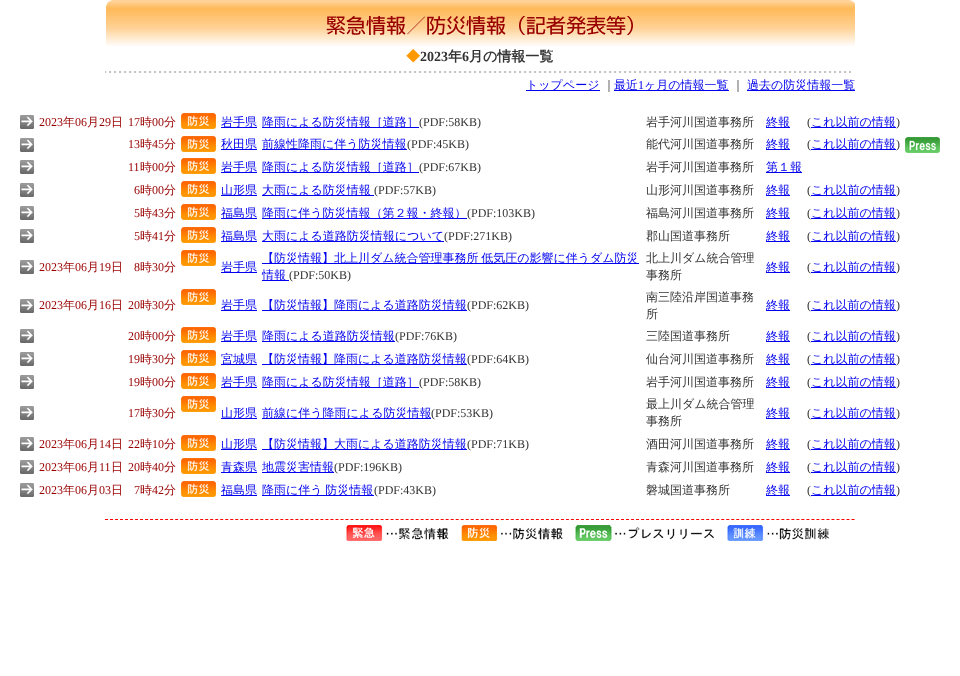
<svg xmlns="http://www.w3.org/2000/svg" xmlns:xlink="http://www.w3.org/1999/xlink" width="960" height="676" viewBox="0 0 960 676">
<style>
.cls-1{font:bold 14px WenQuanYi Zen Hei;fill:#ff9900}
.cls-2{font:bold 14px Liberation Serif;fill:#333333}
.cls-3{font:bold 14px WenQuanYi Zen Hei;fill:#333333}
.cls-4{font:500 12px WenQuanYi Zen Hei;fill:#0000ee}
.cls-5{font:500 12px WenQuanYi Zen Hei;fill:#333333}
.cls-6{font:12px Liberation Serif;fill:#0000ee}
.cls-7{font:12px Liberation Serif;fill:#990000}
.cls-8{font:500 12px WenQuanYi Zen Hei;fill:#990000}
.cls-9{font:12px Liberation Serif;fill:#333333}
</style>
<rect width="100%" height="100%" fill="#ffffff"/>
<image xlink:href="image0.png" x="106" y="0" width="749" height="46"/>
<image xlink:href="image1.png" x="105" y="71" width="746" height="2"/>
<rect fill="#0000ee" x="526" y="90" width="74" height="1"/>
<rect fill="#0000ee" x="614" y="90" width="115" height="1"/>
<rect fill="#0000ee" x="747" y="90" width="108" height="1"/>
<image xlink:href="image2.png" x="20" y="115" width="14" height="14"/>
<image xlink:href="image3.png" x="181" y="113" width="35" height="16"/>
<rect fill="#0000ee" x="221" y="127" width="36" height="1"/>
<rect fill="#0000ee" x="262" y="127" width="157" height="1"/>
<rect fill="#0000ee" x="766" y="127" width="24" height="1"/>
<rect fill="#0000ee" x="811" y="127" width="85" height="1"/>
<image xlink:href="image2.png" x="20" y="138" width="14" height="14"/>
<image xlink:href="image3.png" x="181" y="136" width="35" height="16"/>
<rect fill="#0000ee" x="221" y="149" width="36" height="1"/>
<rect fill="#0000ee" x="262" y="149" width="145" height="1"/>
<rect fill="#0000ee" x="766" y="149" width="24" height="1"/>
<rect fill="#0000ee" x="811" y="149" width="85" height="1"/>
<image xlink:href="image4.png" x="905" y="137" width="35" height="16"/>
<image xlink:href="image2.png" x="20" y="160" width="14" height="14"/>
<image xlink:href="image3.png" x="181" y="158" width="35" height="16"/>
<rect fill="#0000ee" x="221" y="172" width="36" height="1"/>
<rect fill="#0000ee" x="262" y="172" width="157" height="1"/>
<rect fill="#0000ee" x="766" y="172" width="36" height="1"/>
<image xlink:href="image2.png" x="20" y="183" width="14" height="14"/>
<image xlink:href="image3.png" x="181" y="181" width="35" height="16"/>
<rect fill="#0000ee" x="221" y="195" width="36" height="1"/>
<rect fill="#0000ee" x="262" y="195" width="112" height="1"/>
<rect fill="#0000ee" x="766" y="195" width="24" height="1"/>
<rect fill="#0000ee" x="811" y="195" width="85" height="1"/>
<image xlink:href="image2.png" x="20" y="206" width="14" height="14"/>
<image xlink:href="image3.png" x="181" y="204" width="35" height="16"/>
<rect fill="#0000ee" x="221" y="218" width="36" height="1"/>
<rect fill="#0000ee" x="262" y="218" width="205" height="1"/>
<rect fill="#0000ee" x="766" y="218" width="24" height="1"/>
<rect fill="#0000ee" x="811" y="218" width="85" height="1"/>
<image xlink:href="image2.png" x="20" y="229" width="14" height="14"/>
<image xlink:href="image3.png" x="181" y="227" width="35" height="16"/>
<rect fill="#0000ee" x="221" y="241" width="36" height="1"/>
<rect fill="#0000ee" x="262" y="241" width="182" height="1"/>
<rect fill="#0000ee" x="766" y="241" width="24" height="1"/>
<rect fill="#0000ee" x="811" y="241" width="85" height="1"/>
<image xlink:href="image2.png" x="20" y="260" width="14" height="14"/>
<image xlink:href="image3.png" x="181" y="250" width="35" height="16"/>
<rect fill="#0000ee" x="221" y="272" width="36" height="1"/>
<rect fill="#0000ee" x="262" y="263" width="377" height="1"/>
<rect fill="#0000ee" x="262" y="280" width="27" height="1"/>
<rect fill="#0000ee" x="766" y="272" width="24" height="1"/>
<rect fill="#0000ee" x="811" y="272" width="85" height="1"/>
<image xlink:href="image2.png" x="20" y="299" width="14" height="14"/>
<image xlink:href="image3.png" x="181" y="289" width="35" height="16"/>
<rect fill="#0000ee" x="221" y="310" width="36" height="1"/>
<rect fill="#0000ee" x="262" y="310" width="205" height="1"/>
<rect fill="#0000ee" x="766" y="310" width="24" height="1"/>
<rect fill="#0000ee" x="811" y="310" width="85" height="1"/>
<image xlink:href="image2.png" x="20" y="329" width="14" height="14"/>
<image xlink:href="image3.png" x="181" y="327" width="35" height="16"/>
<rect fill="#0000ee" x="221" y="341" width="36" height="1"/>
<rect fill="#0000ee" x="262" y="341" width="133" height="1"/>
<rect fill="#0000ee" x="766" y="341" width="24" height="1"/>
<rect fill="#0000ee" x="811" y="341" width="85" height="1"/>
<image xlink:href="image2.png" x="20" y="352" width="14" height="14"/>
<image xlink:href="image3.png" x="181" y="350" width="35" height="16"/>
<rect fill="#0000ee" x="221" y="364" width="36" height="1"/>
<rect fill="#0000ee" x="262" y="364" width="205" height="1"/>
<rect fill="#0000ee" x="766" y="364" width="24" height="1"/>
<rect fill="#0000ee" x="811" y="364" width="85" height="1"/>
<image xlink:href="image2.png" x="20" y="375" width="14" height="14"/>
<image xlink:href="image3.png" x="181" y="373" width="35" height="16"/>
<rect fill="#0000ee" x="221" y="387" width="36" height="1"/>
<rect fill="#0000ee" x="262" y="387" width="157" height="1"/>
<rect fill="#0000ee" x="766" y="387" width="24" height="1"/>
<rect fill="#0000ee" x="811" y="387" width="85" height="1"/>
<image xlink:href="image2.png" x="20" y="406" width="14" height="14"/>
<image xlink:href="image3.png" x="181" y="396" width="35" height="16"/>
<rect fill="#0000ee" x="221" y="418" width="36" height="1"/>
<rect fill="#0000ee" x="262" y="418" width="169" height="1"/>
<rect fill="#0000ee" x="766" y="418" width="24" height="1"/>
<rect fill="#0000ee" x="811" y="418" width="85" height="1"/>
<image xlink:href="image2.png" x="20" y="437" width="14" height="14"/>
<image xlink:href="image3.png" x="181" y="435" width="35" height="16"/>
<rect fill="#0000ee" x="221" y="449" width="36" height="1"/>
<rect fill="#0000ee" x="262" y="449" width="205" height="1"/>
<rect fill="#0000ee" x="766" y="449" width="24" height="1"/>
<rect fill="#0000ee" x="811" y="449" width="85" height="1"/>
<image xlink:href="image2.png" x="20" y="460" width="14" height="14"/>
<image xlink:href="image3.png" x="181" y="458" width="35" height="16"/>
<rect fill="#0000ee" x="221" y="472" width="36" height="1"/>
<rect fill="#0000ee" x="262" y="472" width="72" height="1"/>
<rect fill="#0000ee" x="766" y="472" width="24" height="1"/>
<rect fill="#0000ee" x="811" y="472" width="85" height="1"/>
<image xlink:href="image2.png" x="20" y="483" width="14" height="14"/>
<image xlink:href="image3.png" x="181" y="481" width="35" height="16"/>
<rect fill="#0000ee" x="221" y="495" width="36" height="1"/>
<rect fill="#0000ee" x="262" y="495" width="112" height="1"/>
<rect fill="#0000ee" x="766" y="495" width="24" height="1"/>
<rect fill="#0000ee" x="811" y="495" width="85" height="1"/>
<path fill="none" stroke="#ff0000" stroke-dasharray="3 2.01" d="M105 519.5H855"/>
<image xlink:href="image5.png" x="346" y="525" width="484" height="16"/>
<text class="cls-1" x="406" y="61">◆</text>
<text class="cls-2" x="420" y="61">2023</text>
<text class="cls-3" x="448" y="61">年</text>
<text class="cls-2" x="462" y="61">6</text>
<text class="cls-3" x="469" y="61">月の情報一覧</text>
<text class="cls-4" x="526" y="89">トップページ</text>
<text class="cls-5" x="603" y="89">｜</text>
<text class="cls-4" x="614" y="89">最近</text>
<text class="cls-6" x="638" y="89">1</text>
<text class="cls-4" x="644" y="89">ヶ月の情報一覧</text>
<text class="cls-5" x="732" y="89">｜</text>
<text class="cls-4" x="747" y="89">過去の防災情報一覧</text>
<text class="cls-7" x="39" y="126">2023</text>
<text class="cls-8" x="63" y="126">年</text>
<text class="cls-7" x="75" y="126">06</text>
<text class="cls-8" x="87" y="126">月</text>
<text class="cls-7" x="99" y="126">29</text>
<text class="cls-8" x="111" y="126">日</text>
<text class="cls-7" x="128" y="126">17</text>
<text class="cls-8" x="140" y="126">時</text>
<text class="cls-7" x="152" y="126">00</text>
<text class="cls-8" x="164" y="126">分</text>
<text class="cls-4" x="221" y="126">岩手県</text>
<text class="cls-4" x="262" y="126">降雨による防災情報［道路］</text>
<text class="cls-9" x="419" y="126">(PDF:58KB)</text>
<text class="cls-5" x="646" y="126">岩手河川国道事務所</text>
<text class="cls-4" x="766" y="126">終報</text>
<text class="cls-9" x="807" y="126">(</text>
<text class="cls-4" x="811" y="126">これ以前の情報</text>
<text class="cls-9" x="896" y="126">)</text>
<text class="cls-7" x="128" y="148">13</text>
<text class="cls-8" x="140" y="148">時</text>
<text class="cls-7" x="152" y="148">45</text>
<text class="cls-8" x="164" y="148">分</text>
<text class="cls-4" x="221" y="148">秋田県</text>
<text class="cls-4" x="262" y="148">前線性降雨に伴う防災情報</text>
<text class="cls-9" x="407" y="148">(PDF:45KB)</text>
<text class="cls-5" x="646" y="148">能代河川国道事務所</text>
<text class="cls-4" x="766" y="148">終報</text>
<text class="cls-9" x="807" y="148">(</text>
<text class="cls-4" x="811" y="148">これ以前の情報</text>
<text class="cls-9" x="896" y="148">)</text>
<text class="cls-7" x="128" y="171">11</text>
<text class="cls-8" x="140" y="171">時</text>
<text class="cls-7" x="152" y="171">00</text>
<text class="cls-8" x="164" y="171">分</text>
<text class="cls-4" x="221" y="171">岩手県</text>
<text class="cls-4" x="262" y="171">降雨による防災情報［道路］</text>
<text class="cls-9" x="419" y="171">(PDF:67KB)</text>
<text class="cls-5" x="646" y="171">岩手河川国道事務所</text>
<text class="cls-4" x="766" y="171">第１報</text>
<text class="cls-7" x="134" y="194">6</text>
<text class="cls-8" x="140" y="194">時</text>
<text class="cls-7" x="152" y="194">00</text>
<text class="cls-8" x="164" y="194">分</text>
<text class="cls-4" x="221" y="194">山形県</text>
<text class="cls-4" x="262" y="194">大雨による防災情報</text>
<text class="cls-9" x="374" y="194">(PDF:57KB)</text>
<text class="cls-5" x="646" y="194">山形河川国道事務所</text>
<text class="cls-4" x="766" y="194">終報</text>
<text class="cls-9" x="807" y="194">(</text>
<text class="cls-4" x="811" y="194">これ以前の情報</text>
<text class="cls-9" x="896" y="194">)</text>
<text class="cls-7" x="134" y="217">5</text>
<text class="cls-8" x="140" y="217">時</text>
<text class="cls-7" x="152" y="217">43</text>
<text class="cls-8" x="164" y="217">分</text>
<text class="cls-4" x="221" y="217">福島県</text>
<text class="cls-4" x="262" y="217">降雨に伴う防災情報（第２報・終報）</text>
<text class="cls-9" x="467" y="217">(PDF:103KB)</text>
<text class="cls-5" x="646" y="217">福島河川国道事務所</text>
<text class="cls-4" x="766" y="217">終報</text>
<text class="cls-9" x="807" y="217">(</text>
<text class="cls-4" x="811" y="217">これ以前の情報</text>
<text class="cls-9" x="896" y="217">)</text>
<text class="cls-7" x="134" y="240">5</text>
<text class="cls-8" x="140" y="240">時</text>
<text class="cls-7" x="152" y="240">41</text>
<text class="cls-8" x="164" y="240">分</text>
<text class="cls-4" x="221" y="240">福島県</text>
<text class="cls-4" x="262" y="240">大雨による道路防災情報について</text>
<text class="cls-9" x="444" y="240">(PDF:271KB)</text>
<text class="cls-5" x="646" y="240">郡山国道事務所</text>
<text class="cls-4" x="766" y="240">終報</text>
<text class="cls-9" x="807" y="240">(</text>
<text class="cls-4" x="811" y="240">これ以前の情報</text>
<text class="cls-9" x="896" y="240">)</text>
<text class="cls-7" x="39" y="271">2023</text>
<text class="cls-8" x="63" y="271">年</text>
<text class="cls-7" x="75" y="271">06</text>
<text class="cls-8" x="87" y="271">月</text>
<text class="cls-7" x="99" y="271">19</text>
<text class="cls-8" x="111" y="271">日</text>
<text class="cls-7" x="134" y="271">8</text>
<text class="cls-8" x="140" y="271">時</text>
<text class="cls-7" x="152" y="271">30</text>
<text class="cls-8" x="164" y="271">分</text>
<text class="cls-4" x="221" y="271">岩手県</text>
<text class="cls-4"><tspan x="262" y="262" word-spacing="-1">【防災情報】北上川ダム統合管理事務所 低気圧の影響に伴うダム防災</tspan><tspan x="262" y="279">情報</tspan></text>
<text class="cls-9" x="289" y="279">(PDF:50KB)</text>
<text class="cls-5"><tspan x="646" y="262">北上川ダム統合管理</tspan><tspan x="646" y="279">事務所</tspan></text>
<text class="cls-4" x="766" y="271">終報</text>
<text class="cls-9" x="807" y="271">(</text>
<text class="cls-4" x="811" y="271">これ以前の情報</text>
<text class="cls-9" x="896" y="271">)</text>
<text class="cls-7" x="39" y="309">2023</text>
<text class="cls-8" x="63" y="309">年</text>
<text class="cls-7" x="75" y="309">06</text>
<text class="cls-8" x="87" y="309">月</text>
<text class="cls-7" x="99" y="309">16</text>
<text class="cls-8" x="111" y="309">日</text>
<text class="cls-7" x="128" y="309">20</text>
<text class="cls-8" x="140" y="309">時</text>
<text class="cls-7" x="152" y="309">30</text>
<text class="cls-8" x="164" y="309">分</text>
<text class="cls-4" x="221" y="309">岩手県</text>
<text class="cls-4" x="262" y="309">【防災情報】降雨による道路防災情報</text>
<text class="cls-9" x="467" y="309">(PDF:62KB)</text>
<text class="cls-5"><tspan x="646" y="301">南三陸沿岸国道事務</tspan><tspan x="646" y="318">所</tspan></text>
<text class="cls-4" x="766" y="309">終報</text>
<text class="cls-9" x="807" y="309">(</text>
<text class="cls-4" x="811" y="309">これ以前の情報</text>
<text class="cls-9" x="896" y="309">)</text>
<text class="cls-7" x="128" y="340">20</text>
<text class="cls-8" x="140" y="340">時</text>
<text class="cls-7" x="152" y="340">00</text>
<text class="cls-8" x="164" y="340">分</text>
<text class="cls-4" x="221" y="340">岩手県</text>
<text class="cls-4" x="262" y="340">降雨による道路防災情報</text>
<text class="cls-9" x="395" y="340">(PDF:76KB)</text>
<text class="cls-5" x="646" y="340">三陸国道事務所</text>
<text class="cls-4" x="766" y="340">終報</text>
<text class="cls-9" x="807" y="340">(</text>
<text class="cls-4" x="811" y="340">これ以前の情報</text>
<text class="cls-9" x="896" y="340">)</text>
<text class="cls-7" x="128" y="363">19</text>
<text class="cls-8" x="140" y="363">時</text>
<text class="cls-7" x="152" y="363">30</text>
<text class="cls-8" x="164" y="363">分</text>
<text class="cls-4" x="221" y="363">宮城県</text>
<text class="cls-4" x="262" y="363">【防災情報】降雨による道路防災情報</text>
<text class="cls-9" x="467" y="363">(PDF:64KB)</text>
<text class="cls-5" x="646" y="363">仙台河川国道事務所</text>
<text class="cls-4" x="766" y="363">終報</text>
<text class="cls-9" x="807" y="363">(</text>
<text class="cls-4" x="811" y="363">これ以前の情報</text>
<text class="cls-9" x="896" y="363">)</text>
<text class="cls-7" x="128" y="386">19</text>
<text class="cls-8" x="140" y="386">時</text>
<text class="cls-7" x="152" y="386">00</text>
<text class="cls-8" x="164" y="386">分</text>
<text class="cls-4" x="221" y="386">岩手県</text>
<text class="cls-4" x="262" y="386">降雨による防災情報［道路］</text>
<text class="cls-9" x="419" y="386">(PDF:58KB)</text>
<text class="cls-5" x="646" y="386">岩手河川国道事務所</text>
<text class="cls-4" x="766" y="386">終報</text>
<text class="cls-9" x="807" y="386">(</text>
<text class="cls-4" x="811" y="386">これ以前の情報</text>
<text class="cls-9" x="896" y="386">)</text>
<text class="cls-7" x="128" y="417">17</text>
<text class="cls-8" x="140" y="417">時</text>
<text class="cls-7" x="152" y="417">30</text>
<text class="cls-8" x="164" y="417">分</text>
<text class="cls-4" x="221" y="417">山形県</text>
<text class="cls-4" x="262" y="417">前線に伴う降雨による防災情報</text>
<text class="cls-9" x="431" y="417">(PDF:53KB)</text>
<text class="cls-5"><tspan x="646" y="408">最上川ダム統合管理</tspan><tspan x="646" y="425">事務所</tspan></text>
<text class="cls-4" x="766" y="417">終報</text>
<text class="cls-9" x="807" y="417">(</text>
<text class="cls-4" x="811" y="417">これ以前の情報</text>
<text class="cls-9" x="896" y="417">)</text>
<text class="cls-7" x="39" y="448">2023</text>
<text class="cls-8" x="63" y="448">年</text>
<text class="cls-7" x="75" y="448">06</text>
<text class="cls-8" x="87" y="448">月</text>
<text class="cls-7" x="99" y="448">14</text>
<text class="cls-8" x="111" y="448">日</text>
<text class="cls-7" x="128" y="448">22</text>
<text class="cls-8" x="140" y="448">時</text>
<text class="cls-7" x="152" y="448">10</text>
<text class="cls-8" x="164" y="448">分</text>
<text class="cls-4" x="221" y="448">山形県</text>
<text class="cls-4" x="262" y="448">【防災情報】大雨による道路防災情報</text>
<text class="cls-9" x="467" y="448">(PDF:71KB)</text>
<text class="cls-5" x="646" y="448">酒田河川国道事務所</text>
<text class="cls-4" x="766" y="448">終報</text>
<text class="cls-9" x="807" y="448">(</text>
<text class="cls-4" x="811" y="448">これ以前の情報</text>
<text class="cls-9" x="896" y="448">)</text>
<text class="cls-7" x="39" y="471">2023</text>
<text class="cls-8" x="63" y="471">年</text>
<text class="cls-7" x="75" y="471">06</text>
<text class="cls-8" x="87" y="471">月</text>
<text class="cls-7" x="99" y="471">11</text>
<text class="cls-8" x="111" y="471">日</text>
<text class="cls-7" x="128" y="471">20</text>
<text class="cls-8" x="140" y="471">時</text>
<text class="cls-7" x="152" y="471">40</text>
<text class="cls-8" x="164" y="471">分</text>
<text class="cls-4" x="221" y="471">青森県</text>
<text class="cls-4" x="262" y="471">地震災害情報</text>
<text class="cls-9" x="334" y="471">(PDF:196KB)</text>
<text class="cls-5" x="646" y="471">青森河川国道事務所</text>
<text class="cls-4" x="766" y="471">終報</text>
<text class="cls-9" x="807" y="471">(</text>
<text class="cls-4" x="811" y="471">これ以前の情報</text>
<text class="cls-9" x="896" y="471">)</text>
<text class="cls-7" x="39" y="494">2023</text>
<text class="cls-8" x="63" y="494">年</text>
<text class="cls-7" x="75" y="494">06</text>
<text class="cls-8" x="87" y="494">月</text>
<text class="cls-7" x="99" y="494">03</text>
<text class="cls-8" x="111" y="494">日</text>
<text class="cls-7" x="134" y="494">7</text>
<text class="cls-8" x="140" y="494">時</text>
<text class="cls-7" x="152" y="494">42</text>
<text class="cls-8" x="164" y="494">分</text>
<text class="cls-4" x="221" y="494">福島県</text>
<text class="cls-4" x="262" y="494" word-spacing="-1">降雨に伴う 防災情報</text>
<text class="cls-9" x="374" y="494">(PDF:43KB)</text>
<text class="cls-5" x="646" y="494">磐城国道事務所</text>
<text class="cls-4" x="766" y="494">終報</text>
<text class="cls-9" x="807" y="494">(</text>
<text class="cls-4" x="811" y="494">これ以前の情報</text>
<text class="cls-9" x="896" y="494">)</text>
</svg>
